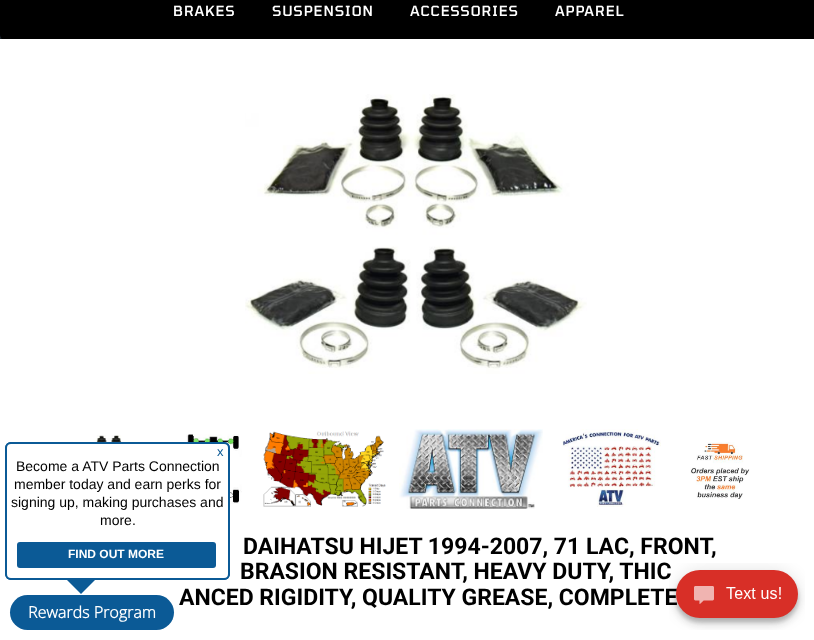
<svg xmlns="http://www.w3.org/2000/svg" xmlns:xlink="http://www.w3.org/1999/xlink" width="814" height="640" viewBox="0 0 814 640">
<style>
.cls-1{font:500 14px Tomorrow;letter-spacing:1px;fill:#ffffff}
.cls-2{font:13px Liberation Sans;fill:#0b5a96}
.cls-3{font:14px Liberation Sans;fill:#000000}
.cls-4{font:bold 12px Liberation Sans;fill:#ffffff}
.cls-5{font:bold 16px Open Sans;fill:#ffffff}
.cls-6{font:bold 23px Roboto;fill:#000000}
</style>
<rect width="100%" height="100%" fill="#ffffff"/>
<image xlink:href="image0.png" x="0" y="35" width="814" height="4"/>
<rect fill="#000000" x="0" y="-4" width="814" height="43" rx="4"/>
<image xlink:href="image2.png" x="70" y="435" width="81" height="7"/>
<image xlink:href="image3.png" x="186" y="434" width="56" height="70"/>
<rect fill="#0b5a96" filter="blur(0.5px)" x="5" y="442" width="225" height="138" rx="6"/>
<rect fill="#ffffff" stroke="#0b5a96" stroke-width="2" x="6" y="443" width="223" height="136" rx="5"/>
<rect fill="#0b5a96" x="17" y="542" width="199" height="26" rx="3"/>
<path fill="#0b5a96" d="M67 580H95L81 594Z"/>
<rect fill="#0b5a96" x="10" y="595" width="164" height="35" rx="17.5"/>
<image xlink:href="image1.png" x="245" y="94" width="342" height="280"/>
<image xlink:href="image4.png" x="263" y="431" width="123" height="76"/>
<image xlink:href="image5.png" x="399" y="429" width="144" height="80"/>
<image xlink:href="image6.png" x="562" y="429" width="99" height="78"/>
<image xlink:href="image7.png" x="690" y="442" width="60" height="57"/>
<text class="cls-1" x="173" y="16">BRAKES</text>
<text class="cls-1" x="272" y="16">SUSPENSION</text>
<text class="cls-1" x="410" y="16">ACCESSORIES</text>
<text class="cls-1" x="555" y="16">APPAREL</text>
<text class="cls-2" x="217" y="456">x</text>
<text class="cls-3" x="16" y="471">Become a ATV Parts Connection</text>
<text class="cls-3" x="14" y="489">member today and earn perks for</text>
<text class="cls-3" x="11" y="507">signing up, making purchases and</text>
<text class="cls-3" x="100" y="525">more.</text>
<text class="cls-4" x="68" y="558">FIND OUT MORE</text>
<text class="cls-5" x="28" y="618">Rewards Program</text>
<text class="cls-6" x="243" y="554">DAIHATSU HIJET 1994-2007, 71 LAC, FRONT,</text>
<text class="cls-6" x="240" y="579">BRASION RESISTANT, HEAVY DUTY, THIC</text>
<text class="cls-6" x="179" y="605">ANCED RIGIDITY, QUALITY GREASE, COMPLETE</text>
<image xlink:href="image8.png" x="669" y="563" width="136" height="67"/>
</svg>
